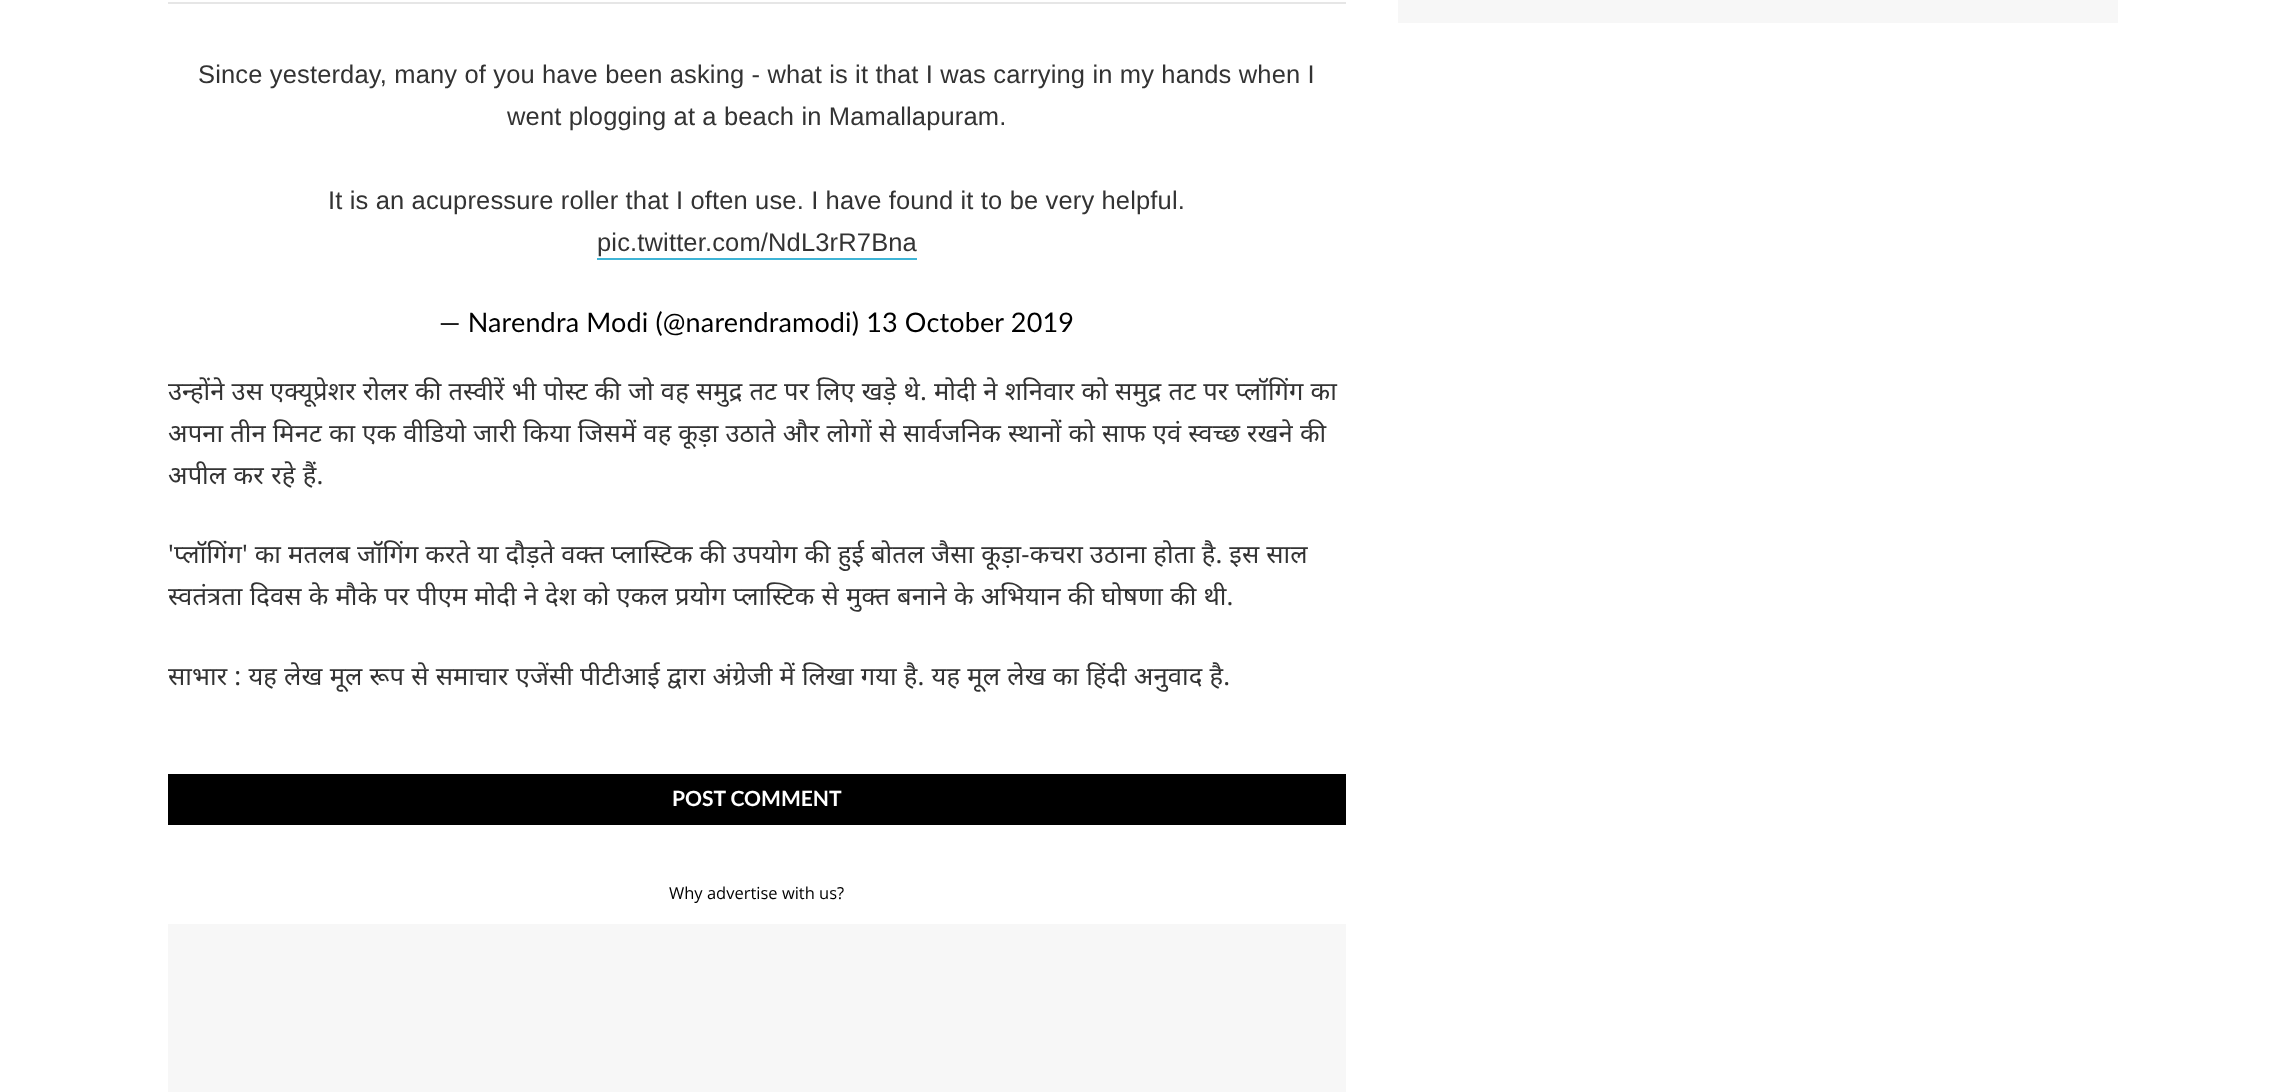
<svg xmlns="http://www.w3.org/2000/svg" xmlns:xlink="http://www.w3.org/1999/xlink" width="2286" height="1092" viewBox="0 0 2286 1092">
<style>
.cls-1{font:25.5px Liberation Sans;letter-spacing:0.15px;fill:#333333}
.cls-2{font:27px Lato;letter-spacing:0.15px;fill:#000000}
.cls-3{font:25.5px Noto Sans;letter-spacing:0.15px;fill:#333333}
.cls-4{font:bold 21px Lato;fill:#ffffff}
.cls-5{font:16.5px Open Sans;fill:#000000}
</style>
<rect width="100%" height="100%" fill="#ffffff"/>
<rect fill="#f7f7f7" x="1398" y="0" width="720" height="23"/>
<rect fill="#e6e6e6" x="168" y="2" width="1178" height="2"/>
<rect fill="#3eb4d6" x="597" y="258" width="320" height="2"/>
<rect fill="#000000" x="168" y="774" width="1178" height="51"/>
<rect fill="#f7f7f7" x="168" y="924" width="1178" height="168"/>
<text class="cls-1" x="198" y="83">Since yesterday, many of you have been asking - what is it that I was carrying in my hands when I</text>
<text class="cls-1" x="507" y="125">went plogging at a beach in Mamallapuram.</text>
<text class="cls-1" x="328" y="209">It is an acupressure roller that I often use. I have found it to be very helpful.</text>
<text class="cls-1" x="597" y="251">pic.twitter.com/NdL3rR7Bna</text>
<text class="cls-2" x="439" y="332">— Narendra Modi (@narendramodi) 13 October 2019</text>
<text class="cls-3"><tspan x="168" y="400" word-spacing="0.25">उन्होंने उस एक्यूप्रेशर रोलर की तस्वीरें भी पोस्ट की जो वह समुद्र तट पर लिए खड़े थे. मोदी ने शनिवार को समुद्र तट पर प्लॉगिंग का</tspan><tspan x="168" y="442" word-spacing="0.2">अपना तीन मिनट का एक वीडियो जारी किया जिसमें वह कूड़ा उठाते और लोगों से सार्वजनिक स्थानों को साफ एवं स्वच्छ रखने की</tspan><tspan x="168" y="484" word-spacing="0.5">अपील कर रहे हैं.</tspan></text>
<text class="cls-3"><tspan x="168" y="563" word-spacing="0.1">'प्लॉगिंग' का मतलब जॉगिंग करते या दौड़ते वक्त प्लास्टिक की उपयोग की हुई बोतल जैसा कूड़ा-कचरा उठाना होता है. इस साल</tspan><tspan x="168" y="605" word-spacing="0.25">स्वतंत्रता दिवस के मौके पर पीएम मोदी ने देश को एकल प्रयोग प्लास्टिक से मुक्त बनाने के अभियान की घोषणा की थी.</tspan></text>
<text class="cls-3" x="168" y="685" word-spacing="0.3">साभार : यह लेख मूल रूप से समाचार एजेंसी पीटीआई द्वारा अंग्रेजी में लिखा गया है. यह मूल लेख का हिंदी अनुवाद है.</text>
<text class="cls-4" x="672" y="806">POST COMMENT</text>
<text class="cls-5" x="669" y="899">Why advertise with us?</text>
</svg>
